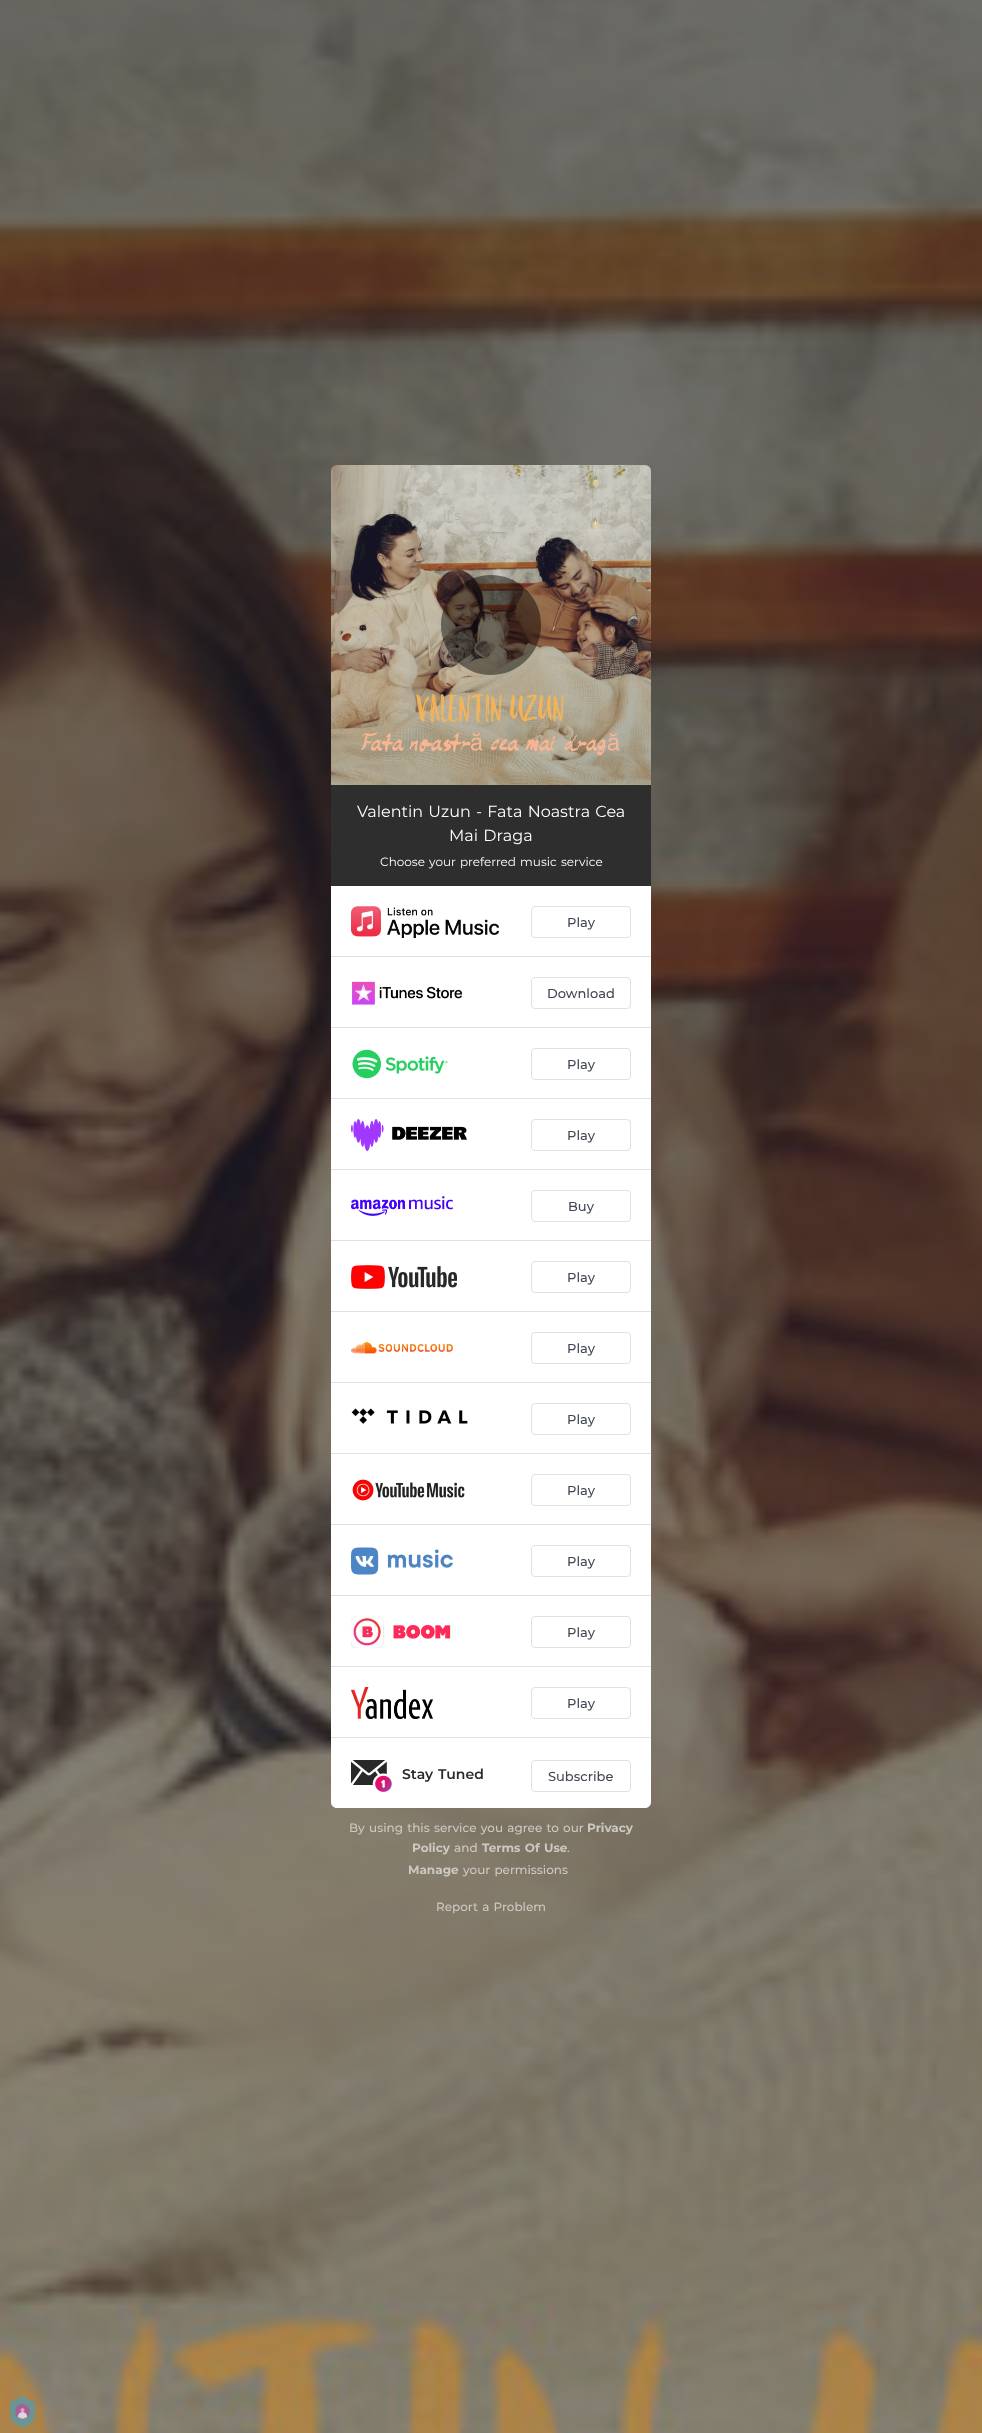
<svg xmlns="http://www.w3.org/2000/svg" xmlns:xlink="http://www.w3.org/1999/xlink" width="982" height="2433" viewBox="0 0 982 2433">
<style>
.cls-1{font:13px Montserrat;fill:#b0aea6}
.cls-2{font:16px Montserrat;fill:#ffffff}
.cls-3{font:12px Montserrat;fill:#ffffff}
.cls-4{font:500 13px Montserrat;fill:#414754}
.cls-5{font:600 14px Montserrat;fill:#282828}
.cls-6{font:500 12px Montserrat;fill:#ccc9c2}
.cls-7{font:bold 12px Montserrat;fill:#ccc9c2}
</style>
<rect width="100%" height="100%" fill="#ffffff"/>
<image xlink:href="image0.png" x="0" y="0" width="982" height="2433"/>
<image xlink:href="image1.png" x="331" y="465" width="320" height="320"/>
<circle fill="#000000" fill-opacity="0.45" cx="491" cy="625" r="50"/>
<rect fill="#2e2e2e" x="331" y="785" width="320" height="101"/>
<path fill="#ffffff" d="M331 886H651V1802C651 1805.5 648.5 1808 645 1808H337C333.5 1808 331 1805.5 331 1802Z"/>
<rect fill="#e1e1e4" x="331" y="956" width="320" height="1"/>
<image xlink:href="image2.png" x="351" y="906" width="148" height="32"/>
<rect fill="none" stroke="#e1e1e4" x="531.5" y="906.5" width="99" height="31" rx="3.5"/>
<rect fill="#e1e1e4" x="331" y="1027" width="320" height="1"/>
<image xlink:href="image3.png" x="352" y="981" width="111" height="24"/>
<rect fill="none" stroke="#e1e1e4" x="531.5" y="977.5" width="99" height="31" rx="3.5"/>
<rect fill="#e1e1e4" x="331" y="1098" width="320" height="1"/>
<image xlink:href="image4.png" x="352" y="1049" width="96" height="30"/>
<rect fill="none" stroke="#e1e1e4" x="531.5" y="1048.5" width="99" height="31" rx="3.5"/>
<rect fill="#e1e1e4" x="331" y="1169" width="320" height="1"/>
<image xlink:href="image5.png" x="351" y="1119" width="116" height="32"/>
<rect fill="none" stroke="#e1e1e4" x="531.5" y="1119.5" width="99" height="31" rx="3.5"/>
<rect fill="#e1e1e4" x="331" y="1240" width="320" height="1"/>
<image xlink:href="image6.png" x="351" y="1196" width="102" height="20"/>
<rect fill="none" stroke="#e1e1e4" x="531.5" y="1190.5" width="99" height="31" rx="3.5"/>
<rect fill="#e1e1e4" x="331" y="1311" width="320" height="1"/>
<image xlink:href="image7.png" x="351" y="1265" width="106" height="24"/>
<rect fill="none" stroke="#e1e1e4" x="531.5" y="1261.5" width="99" height="31" rx="3.5"/>
<rect fill="#e1e1e4" x="331" y="1382" width="320" height="1"/>
<image xlink:href="image8.png" x="351" y="1342" width="102" height="12"/>
<rect fill="none" stroke="#e1e1e4" x="531.5" y="1332.5" width="99" height="31" rx="3.5"/>
<rect fill="#e1e1e4" x="331" y="1453" width="320" height="1"/>
<image xlink:href="image9.png" x="351" y="1408" width="117" height="16"/>
<rect fill="none" stroke="#e1e1e4" x="531.5" y="1403.5" width="99" height="31" rx="3.5"/>
<rect fill="#e1e1e4" x="331" y="1524" width="320" height="1"/>
<image xlink:href="image10.png" x="352" y="1479" width="113" height="22"/>
<rect fill="none" stroke="#e1e1e4" x="531.5" y="1474.5" width="99" height="31" rx="3.5"/>
<rect fill="#e1e1e4" x="331" y="1595" width="320" height="1"/>
<image xlink:href="image11.png" x="351" y="1547" width="102" height="28"/>
<rect fill="none" stroke="#e1e1e4" x="531.5" y="1545.5" width="99" height="31" rx="3.5"/>
<rect fill="#e1e1e4" x="331" y="1666" width="320" height="1"/>
<image xlink:href="image12.png" x="351" y="1616" width="100" height="32"/>
<rect fill="none" stroke="#e1e1e4" x="531.5" y="1616.5" width="99" height="31" rx="3.5"/>
<rect fill="#e1e1e4" x="331" y="1737" width="320" height="1"/>
<image xlink:href="image13.png" x="351" y="1687" width="82" height="32"/>
<rect fill="none" stroke="#e1e1e4" x="531.5" y="1687.5" width="99" height="31" rx="3.5"/>
<image xlink:href="image14.png" x="351" y="1760" width="41" height="32"/>
<rect fill="none" stroke="#e1e1e4" x="531.5" y="1760.5" width="99" height="31" rx="3.5"/>
<image xlink:href="image15.png" x="10" y="2395" width="25" height="33"/>
<text class="cls-1" x="443" y="520" word-spacing="1">ll s</text>
<text class="cls-2" x="357" y="817" word-spacing="1">Valentin Uzun - Fata Noastra Cea</text>
<text class="cls-2" x="449" y="841" word-spacing="1">Mai Draga</text>
<text class="cls-3" x="380" y="866" word-spacing="1">Choose your preferred music service</text>
<text class="cls-4" x="567" y="927">Play</text>
<text class="cls-4" x="547" y="998">Download</text>
<text class="cls-4" x="567" y="1069">Play</text>
<text class="cls-4" x="567" y="1140">Play</text>
<text class="cls-4" x="568" y="1211">Buy</text>
<text class="cls-4" x="567" y="1282">Play</text>
<text class="cls-4" x="567" y="1353">Play</text>
<text class="cls-4" x="567" y="1424">Play</text>
<text class="cls-4" x="567" y="1495">Play</text>
<text class="cls-4" x="567" y="1566">Play</text>
<text class="cls-4" x="567" y="1637">Play</text>
<text class="cls-4" x="567" y="1708">Play</text>
<text class="cls-5" x="402" y="1779" word-spacing="1">Stay Tuned</text>
<text class="cls-4" x="548" y="1781">Subscribe</text>
<text class="cls-6" x="349" y="1832" word-spacing="1">By using this service you agree to our</text>
<text class="cls-7" x="587" y="1832">Privacy</text>
<text class="cls-7" x="412" y="1852">Policy</text>
<text class="cls-6" x="454" y="1852">and</text>
<text class="cls-7" x="482" y="1852" word-spacing="1">Terms Of Use</text>
<text class="cls-6" x="567" y="1852">.</text>
<text class="cls-7" x="408" y="1874">Manage</text>
<text class="cls-6" x="463" y="1874" word-spacing="1">your permissions</text>
<text class="cls-6" x="436" y="1911" word-spacing="1">Report a Problem</text>
</svg>
